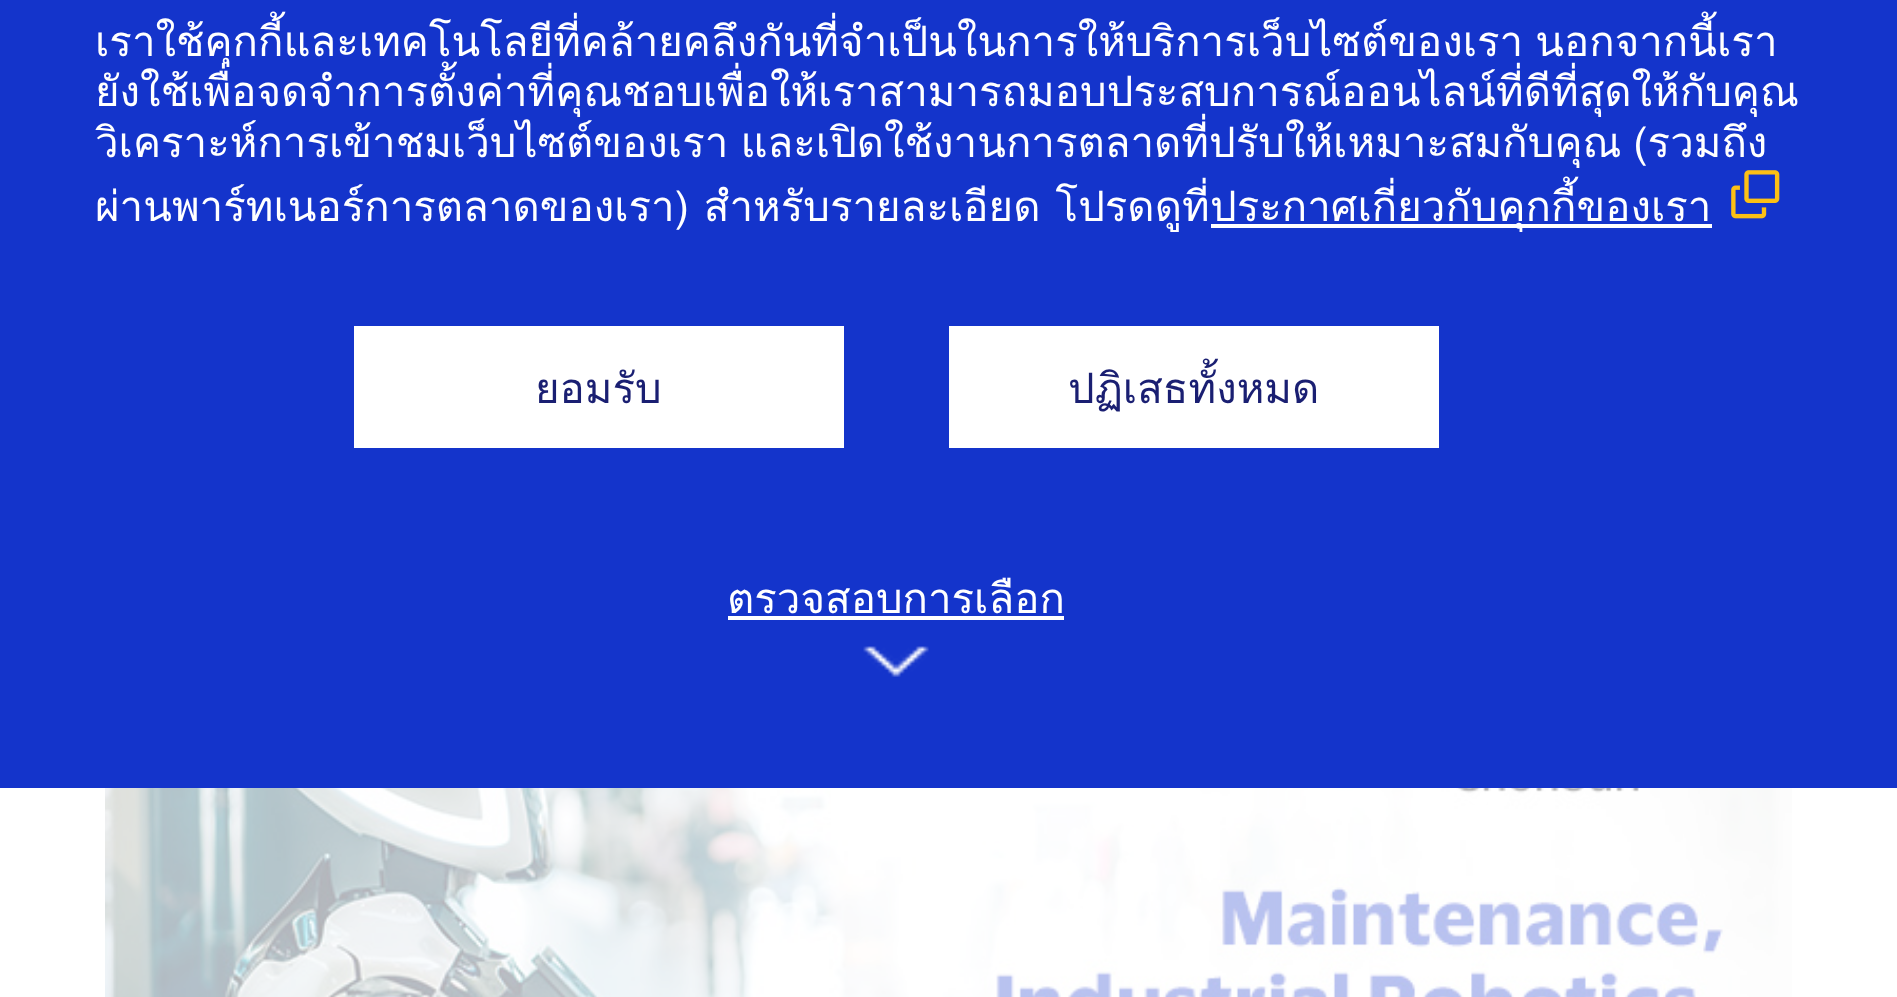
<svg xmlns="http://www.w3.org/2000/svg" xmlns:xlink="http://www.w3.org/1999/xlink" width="1897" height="997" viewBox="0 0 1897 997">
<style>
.cls-1{font:42px Loma;fill:#ffffff}
.cls-2{font:42px Loma;fill:#1a1f72}
</style>
<rect width="100%" height="100%" fill="#ffffff"/>
<rect fill="#1434cb" x="0" y="0" width="1897" height="788"/>
<rect fill="#ffffff" x="1211" y="224" width="501" height="4"/>
<image xlink:href="image0.png" x="1731" y="170" width="49" height="49"/>
<rect fill="#ffffff" x="354" y="326" width="490" height="122"/>
<rect fill="#ffffff" x="949" y="326" width="490" height="122"/>
<rect fill="#ffffff" x="728" y="616" width="336" height="4"/>
<image xlink:href="image1.png" x="863" y="646" width="66" height="31"/>
<image xlink:href="image2.png" x="105" y="788" width="1687" height="209"/>
<text class="cls-1"><tspan x="95" y="56" word-spacing="-2">เราใช้คุกกี้และเทคโนโลยีที่คล้ายคลึงกันที่จำเป็นในการให้บริการเว็บไซต์ของเรา นอกจากนี้เรา</tspan><tspan x="95" y="106">ยังใช้เพื่อจดจำการตั้งค่าที่คุณชอบเพื่อให้เราสามารถมอบประสบการณ์ออนไลน์ที่ดีที่สุดให้กับคุณ</tspan><tspan x="95" y="157" word-spacing="-2">วิเคราะห์การเข้าชมเว็บไซต์ของเรา และเปิดใช้งานการตลาดที่ปรับให้เหมาะสมกับคุณ (รวมถึง</tspan><tspan x="95" y="221" word-spacing="1">ผ่านพาร์ทเนอร์การตลาดของเรา) สำหรับรายละเอียด โปรดดูที่</tspan></text>
<text class="cls-1" x="1210" y="221">ประกาศเกี่ยวกับคุกกี้ของเรา</text>
<text class="cls-2" x="535" y="403">ยอมรับ</text>
<text class="cls-2" x="1068" y="403">ปฏิเสธทั้งหมด</text>
<text class="cls-1" x="727" y="613">ตรวจสอบการเลือก</text>
</svg>
